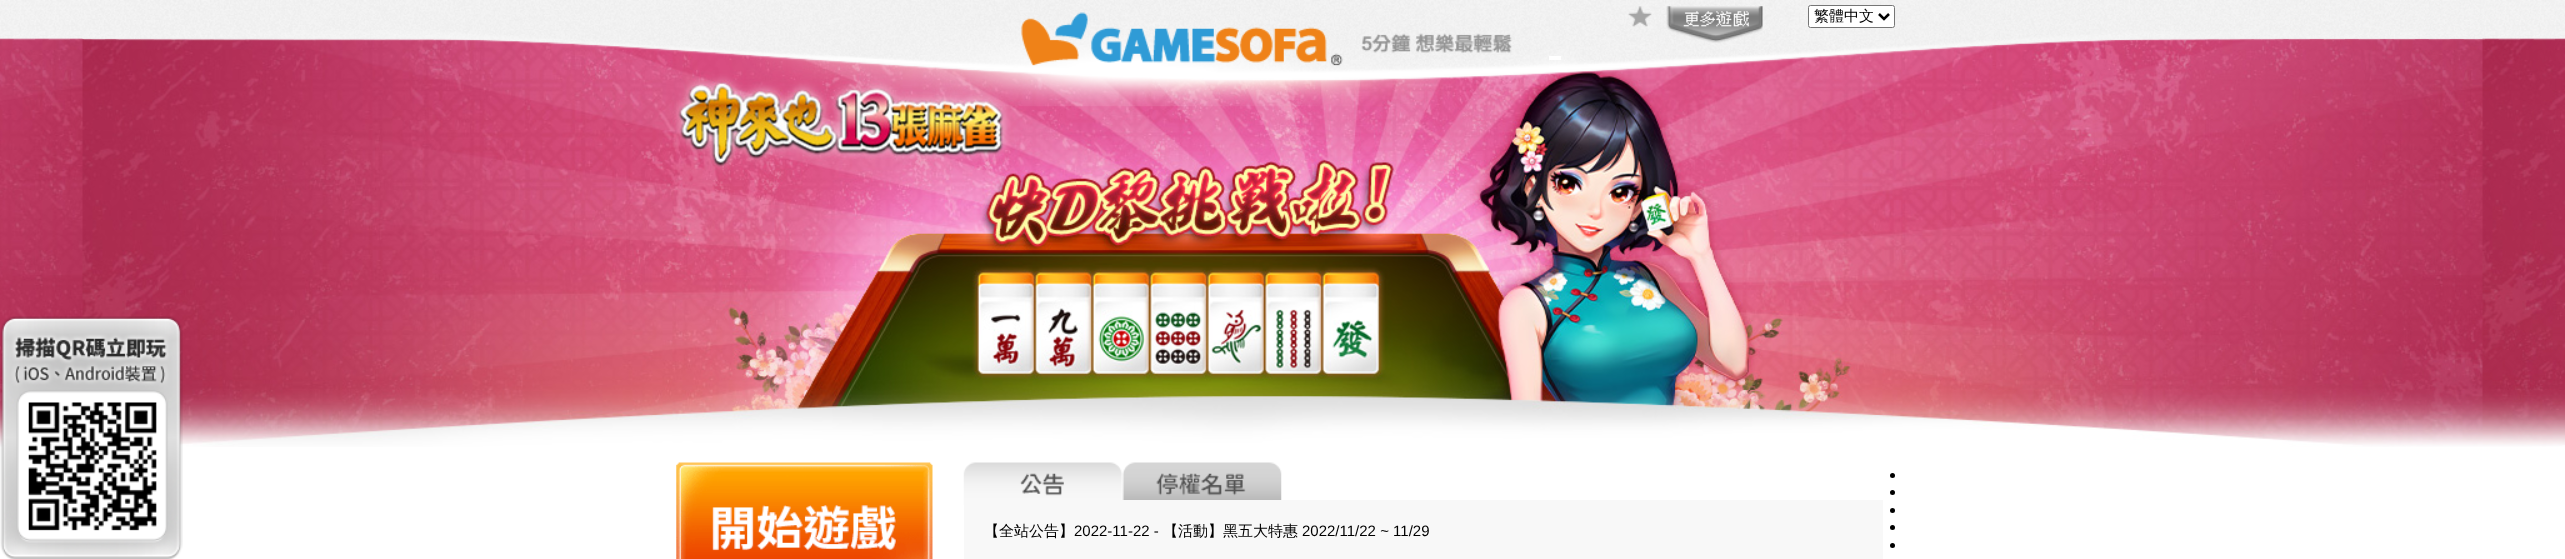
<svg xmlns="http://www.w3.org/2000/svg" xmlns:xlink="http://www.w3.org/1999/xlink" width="2565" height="559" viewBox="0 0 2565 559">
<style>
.cls-1{font:500 15px WenQuanYi Zen Hei;fill:#000000}
.cls-2{font:15px Liberation Sans;fill:#000000}
</style>
<rect width="100%" height="100%" fill="#ffffff"/>
<image xlink:href="image6.png" x="0" y="38" width="2565" height="409"/>
<image xlink:href="image0.png" x="0" y="0" width="2565" height="41"/>
<image xlink:href="image1.png" x="82" y="0" width="2401" height="107"/>
<image xlink:href="image2.png" x="1021" y="12" width="322" height="54"/>
<image xlink:href="image3.png" x="1361" y="33" width="151" height="20"/>
<image xlink:href="image4.png" x="1628" y="6" width="24" height="21"/>
<image xlink:href="image5.png" x="1666" y="6" width="97" height="37"/>
<rect fill="#ffffff" stroke="#767676" x="1808.5" y="5.5" width="86" height="22" rx="2"/>
<path fill="none" stroke="#000000" stroke-width="2.5" d="M1879 14L1884 19L1889 14"/>
<rect fill="#000000" fill-opacity="0.5" filter="blur(0.5px)" x="1549" y="56" width="12" height="4"/>
<rect fill="#ffffff" x="1549" y="56" width="12" height="4"/>
<image xlink:href="image7.png" x="0" y="316" width="183" height="243"/>
<image xlink:href="image8.png" x="676" y="462" width="257" height="97"/>
<image xlink:href="image9.png" x="963" y="462" width="160" height="43"/>
<image xlink:href="image10.png" x="1122" y="462" width="160" height="38"/>
<rect fill="#f8f8f8" x="964" y="500" width="919" height="59"/>
<circle fill="#000000" cx="1892.5" cy="475.5" r="2.5"/>
<circle fill="#000000" cx="1892.5" cy="492.5" r="2.5"/>
<circle fill="#000000" cx="1892.5" cy="510.5" r="2.5"/>
<circle fill="#000000" cx="1892.5" cy="527.5" r="2.5"/>
<circle fill="#000000" cx="1892.5" cy="545.5" r="2.5"/>
<text class="cls-1" x="1814" y="21">繁體中文</text>
<text class="cls-1" x="984" y="536">【全站公告】</text>
<text class="cls-2" x="1074" y="536">2022-11-22 -</text>
<text class="cls-1" x="1163" y="536">【活動】黑五大特惠</text>
<text class="cls-2" x="1302" y="536">2022/11/22 ~ 11/29</text>
</svg>
